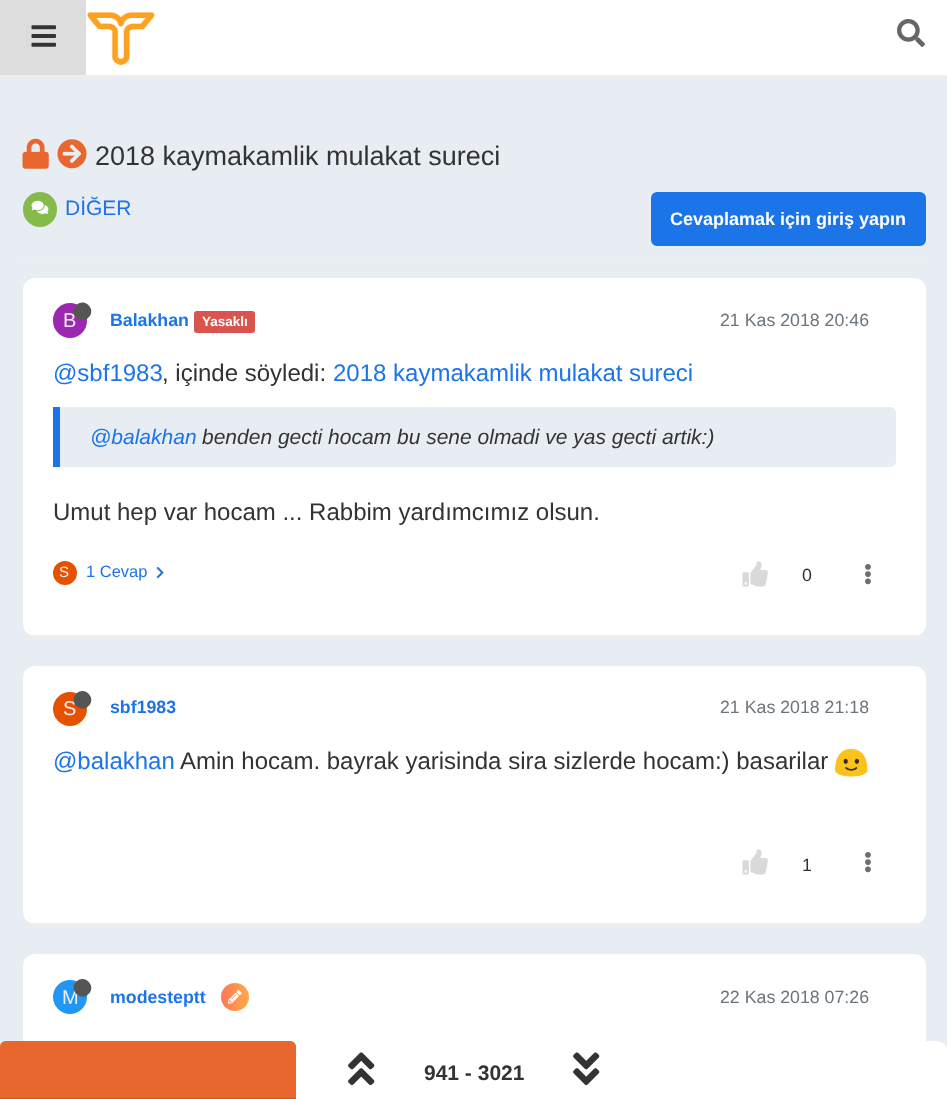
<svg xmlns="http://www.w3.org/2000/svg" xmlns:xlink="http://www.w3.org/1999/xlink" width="947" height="1099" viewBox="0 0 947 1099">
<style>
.cls-1{font:27px Liberation Sans;fill:#333333}
.cls-2{font:21px Liberation Sans;fill:#1c74e9}
.cls-3{font:bold 18px Liberation Sans;fill:#ffffff}
.cls-4{font:20px Liberation Sans;fill:#eeeeee}
.cls-5{font:bold 17.75px Liberation Sans;fill:#1c74e9}
.cls-6{font:bold 13.5px Liberation Sans;fill:#ffffff}
.cls-7{font:17.75px Liberation Sans;fill:#6c757d}
.cls-8{font:24px Liberation Sans;fill:#1c74e9}
.cls-9{font:24px Liberation Sans;fill:#333333}
.cls-10{font:italic 21px Liberation Sans;fill:#1c74e9}
.cls-11{font:italic 21px Liberation Sans;fill:#333333}
.cls-12{font:15px Liberation Sans;fill:#eeeeee}
.cls-13{font:16.5px Liberation Sans;fill:#1c74e9}
.cls-14{font:17.75px Liberation Sans;fill:#333333}
.cls-15{font:bold 21px Liberation Sans;fill:#333333}
</style>
<defs>
<linearGradient id="g1" gradientUnits="userSpaceOnUse" x1="221" y1="997" x2="249" y2="997"><stop offset="0" stop-color="#ff7755"/><stop offset="1" stop-color="#feaa4a"/></linearGradient>
</defs>
<rect width="100%" height="100%" fill="#e8ecf3"/>
<rect fill="#ffffff" x="86" y="0" width="861" height="75"/>
<rect fill="#eeeeee" x="0" y="75" width="947" height="2"/>
<rect fill="#dddddd" x="0" y="0" width="86" height="75"/>
<image xlink:href="image0.png" x="31" y="25" width="25" height="22"/>
<image xlink:href="image1.png" x="87" y="12" width="68" height="53"/>
<image xlink:href="image2.png" x="897" y="19" width="28" height="28"/>
<image xlink:href="image3.png" x="22" y="138" width="27" height="31"/>
<image xlink:href="image4.png" x="57" y="139" width="30" height="30"/>
<rect fill="#eeeeee" x="23" y="261" width="903" height="2"/>
<rect fill="#86ba4b" x="23" y="192" width="34" height="35" rx="17"/>
<image xlink:href="image5.png" x="31" y="200" width="18" height="14"/>
<rect fill="#1c74e9" stroke="#1c74e9" stroke-width="2" x="652" y="193" width="273" height="52" rx="5"/>
<rect fill="#ffffff" x="23" y="278" width="903" height="358" rx="12"/>
<rect fill="#eeeeee" x="29" y="635" width="891" height="2"/>
<rect fill="#9c27b0" x="53" y="303" width="34" height="35" rx="17"/>
<rect fill="#d9534f" x="194" y="311" width="61" height="22" rx="3"/>
<path fill="#e8ecf3" d="M53 407H890C893.5 407 896 409.5 896 413V461C896 464.5 893.5 467 890 467H53Z"/>
<rect fill="#1c74e9" x="53" y="407" width="7" height="60"/>
<circle fill="#e65100" cx="65" cy="573" r="12"/>
<image xlink:href="image6.png" x="156" y="567" width="8" height="12"/>
<image xlink:href="image7.png" x="742" y="561" width="26" height="26"/>
<image xlink:href="image8.png" x="865" y="564" width="6" height="21"/>
<rect fill="#ffffff" x="23" y="666" width="903" height="258" rx="12"/>
<rect fill="#eeeeee" x="29" y="923" width="891" height="2"/>
<circle fill="#e65100" cx="70" cy="709" r="17"/>
<image xlink:href="image9.png" x="834" y="748" width="34" height="29"/>
<image xlink:href="image7.png" x="742" y="849" width="26" height="26"/>
<image xlink:href="image8.png" x="865" y="852" width="6" height="21"/>
<rect fill="#ffffff" x="23" y="954" width="903" height="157" rx="12"/>
<circle fill="#2196f3" cx="70" cy="997" r="17"/>
<circle fill="url(#g1)" cx="235" cy="997" r="14"/>
<image xlink:href="image10.png" x="228" y="990" width="14" height="14"/>
<path fill="#ffffff" d="M12 1041H936C942.5 1041 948 1046.5 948 1053V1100H0V1053C0 1046.5 5.5 1041 12 1041Z"/>
<path fill="#e7672e" d="M6 1041H290C293.5 1041 296 1043.5 296 1047V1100H0V1047C0 1043.5 2.5 1041 6 1041Z"/>
<rect fill="#c45827" x="0" y="1098" width="296" height="1"/>
<image xlink:href="image11.png" x="348" y="1052" width="27" height="34"/>
<image xlink:href="image12.png" x="573" y="1052" width="27" height="34"/>
<text class="cls-1" x="95" y="165">2018 kaymakamlik mulakat sureci</text>
<text class="cls-2" x="65" y="215">DİĞER</text>
<text class="cls-3" x="670" y="225">Cevaplamak için giriş yapın</text>
<text class="cls-4" x="63" y="327">B</text>
<path fill="#555555" d="M76.5 305C84.5 297 97 309.5 88.5 317.5C80.5 325.5 68 313 76.5 305Z"/>
<text class="cls-5" x="110" y="326">Balakhan</text>
<text class="cls-6" x="202" y="326">Yasaklı</text>
<text class="cls-7" x="720" y="326">21 Kas 2018 20:46</text>
<text class="cls-8" x="53" y="381">@sbf1983</text>
<text class="cls-9" x="162" y="381">, içinde söyledi:</text>
<text class="cls-8" x="333" y="381">2018 kaymakamlik mulakat sureci</text>
<text class="cls-10" x="90" y="444">@balakhan</text>
<text class="cls-11" x="202" y="444">benden gecti hocam bu sene olmadi ve yas gecti artik:)</text>
<text class="cls-9" x="53" y="520">Umut hep var hocam ... Rabbim yardımcımız olsun.</text>
<text class="cls-12" x="59" y="577">S</text>
<text class="cls-13" x="86" y="577">1 Cevap</text>
<text class="cls-14" x="802" y="581">0</text>
<text class="cls-4" x="63" y="715">S</text>
<path fill="#555555" d="M76.5 693.5C84.5 685.5 97 698 88.5 706C80.5 714 68 701.5 76.5 693.5Z"/>
<text class="cls-5" x="110" y="713">sbf1983</text>
<text class="cls-7" x="720" y="713">21 Kas 2018 21:18</text>
<text class="cls-8" x="53" y="769">@balakhan</text>
<text class="cls-9" x="180" y="769">Amin hocam. bayrak yarisinda sira sizlerde hocam:) basarilar</text>
<text class="cls-14" x="802" y="871">1</text>
<text class="cls-4" x="62" y="1004">M</text>
<path fill="#555555" d="M76.5 981.5C84.5 973.5 97 986 88.5 994C80.5 1002 68 989.5 76.5 981.5Z"/>
<text class="cls-5" x="110" y="1003">modesteptt</text>
<text class="cls-7" x="720" y="1003">22 Kas 2018 07:26</text>
<text class="cls-15" x="424" y="1080">941 - 3021</text>
</svg>
